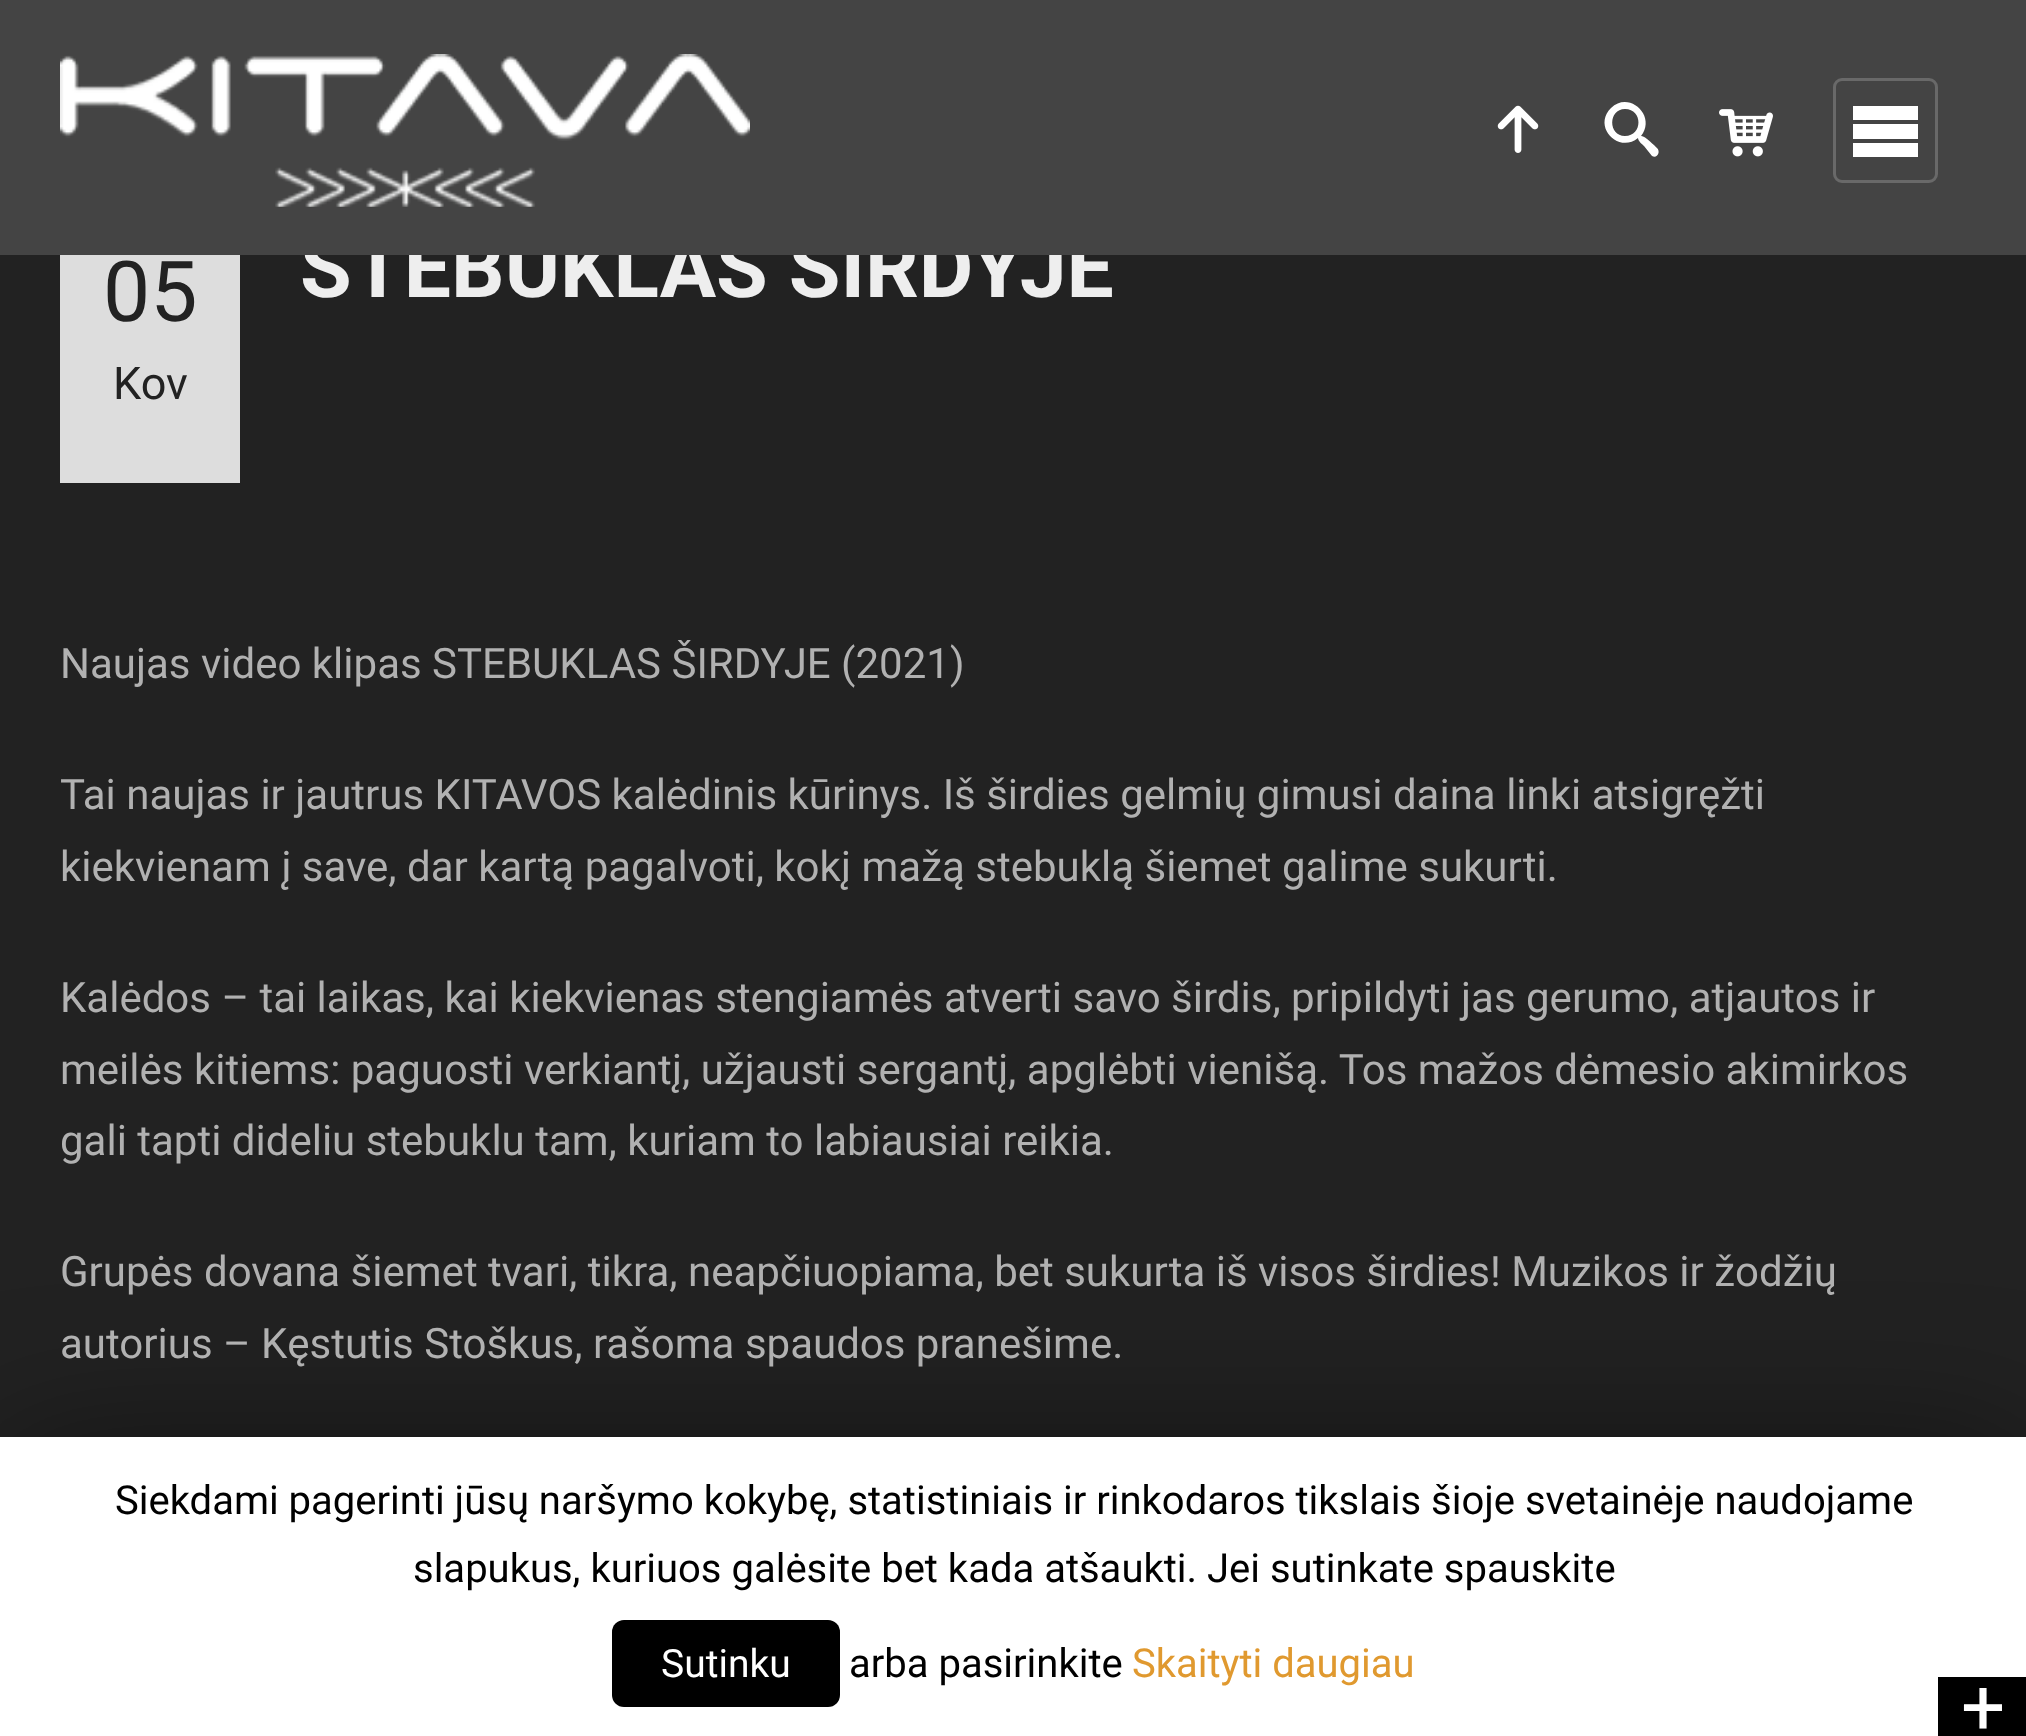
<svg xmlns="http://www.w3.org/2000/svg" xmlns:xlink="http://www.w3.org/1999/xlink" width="2026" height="1736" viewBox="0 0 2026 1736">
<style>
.cls-1{font:84px Roboto;fill:#222222}
.cls-2{font:45px Roboto;fill:#222222}
.cls-3{font:bold 84px Roboto;fill:#eeeeee}
.cls-4{font:42px Roboto;fill:#b1b1b1}
.cls-5{font:40px Roboto;fill:#000000}
.cls-6{font:39px Roboto;fill:#ffffff}
.cls-7{font:40px Roboto;fill:#e0992f}
.cls-8{font:78px Roboto;fill:#ffffff}
</style>
<rect width="100%" height="100%" fill="#222222"/>
<rect fill="#dddddd" x="60" y="255" width="180" height="228"/>
<rect fill="#000000" fill-opacity="0.5" filter="blur(75px)" x="0" y="1452" width="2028" height="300"/>
<rect fill="#ffffff" x="0" y="1437" width="2026" height="299"/>
<rect fill="#000000" x="612" y="1620" width="228" height="87" rx="12"/>
<rect fill="#000000" x="1938" y="1677" width="88" height="59"/>
<text class="cls-1" x="103" y="321">05</text>
<text class="cls-2" x="113" y="399">Kov</text>
<text class="cls-3" x="300" y="297">STEBUKLAS ŠIRDYJE</text>
<rect fill="#444444" x="0" y="0" width="2026" height="255"/>
<rect fill="none" stroke="#696969" stroke-width="3" x="1834.5" y="79.5" width="102" height="102" rx="7.5"/>
<path fill="#ffffff" d="M1853 106H1918V120H1853ZM1853 124H1918V139H1853ZM1853 143H1918V157H1853Z"/>
<image xlink:href="image2.png" x="1719" y="109" width="54" height="48"/>
<path fill="#ffffff" d="M1657 148C1655 146 1644 135 1641 136C1657 116 1629 90 1611 108C1592 127 1619 154 1638 138C1638 141 1642 144 1644 146L1652 156C1657 159 1661 152 1657 148ZM1625 136C1608 136 1608 109 1625 109C1643 109 1643 136 1625 136Z"/>
<image xlink:href="image1.png" x="1497" y="105" width="42" height="48"/>
<image xlink:href="image0.png" x="60" y="54" width="690" height="153"/>
<text class="cls-4" x="60" y="678">Naujas video klipas STEBUKLAS ŠIRDYJE (2021)</text>
<text class="cls-4"><tspan x="60" y="809">Tai naujas ir jautrus KITAVOS kalėdinis kūrinys. Iš širdies gelmių gimusi daina linki atsigręžti</tspan><tspan x="60" y="881">kiekvienam į save, dar kartą pagalvoti, kokį mažą stebuklą šiemet galime sukurti.</tspan></text>
<text class="cls-4"><tspan x="60" y="1012">Kalėdos – tai laikas, kai kiekvienas stengiamės atverti savo širdis, pripildyti jas gerumo, atjautos ir</tspan><tspan x="60" y="1084">meilės kitiems: paguosti verkiantį, užjausti sergantį, apglėbti vienišą. Tos mažos dėmesio akimirkos</tspan><tspan x="60" y="1155">gali tapti dideliu stebuklu tam, kuriam to labiausiai reikia.</tspan></text>
<text class="cls-4"><tspan x="60" y="1286">Grupės dovana šiemet tvari, tikra, neapčiuopiama, bet sukurta iš visos širdies! Muzikos ir žodžių</tspan><tspan x="60" y="1358">autorius – Kęstutis Stoškus, rašoma spaudos pranešime.</tspan></text>
<text class="cls-5" x="115" y="1514">Siekdami pagerinti jūsų naršymo kokybę, statistiniais ir rinkodaros tikslais šioje svetainėje naudojame</text>
<text class="cls-5" x="413" y="1582">slapukus, kuriuos galėsite bet kada atšaukti.</text>
<text class="cls-5" x="1207" y="1582">Jei sutinkate spauskite</text>
<text class="cls-6" x="661" y="1677">Sutinku</text>
<text class="cls-5" x="849" y="1677">arba pasirinkite</text>
<text class="cls-7" x="1132" y="1677">Skaityti daugiau</text>
<text class="cls-8" x="1961" y="1734">+</text>
</svg>
